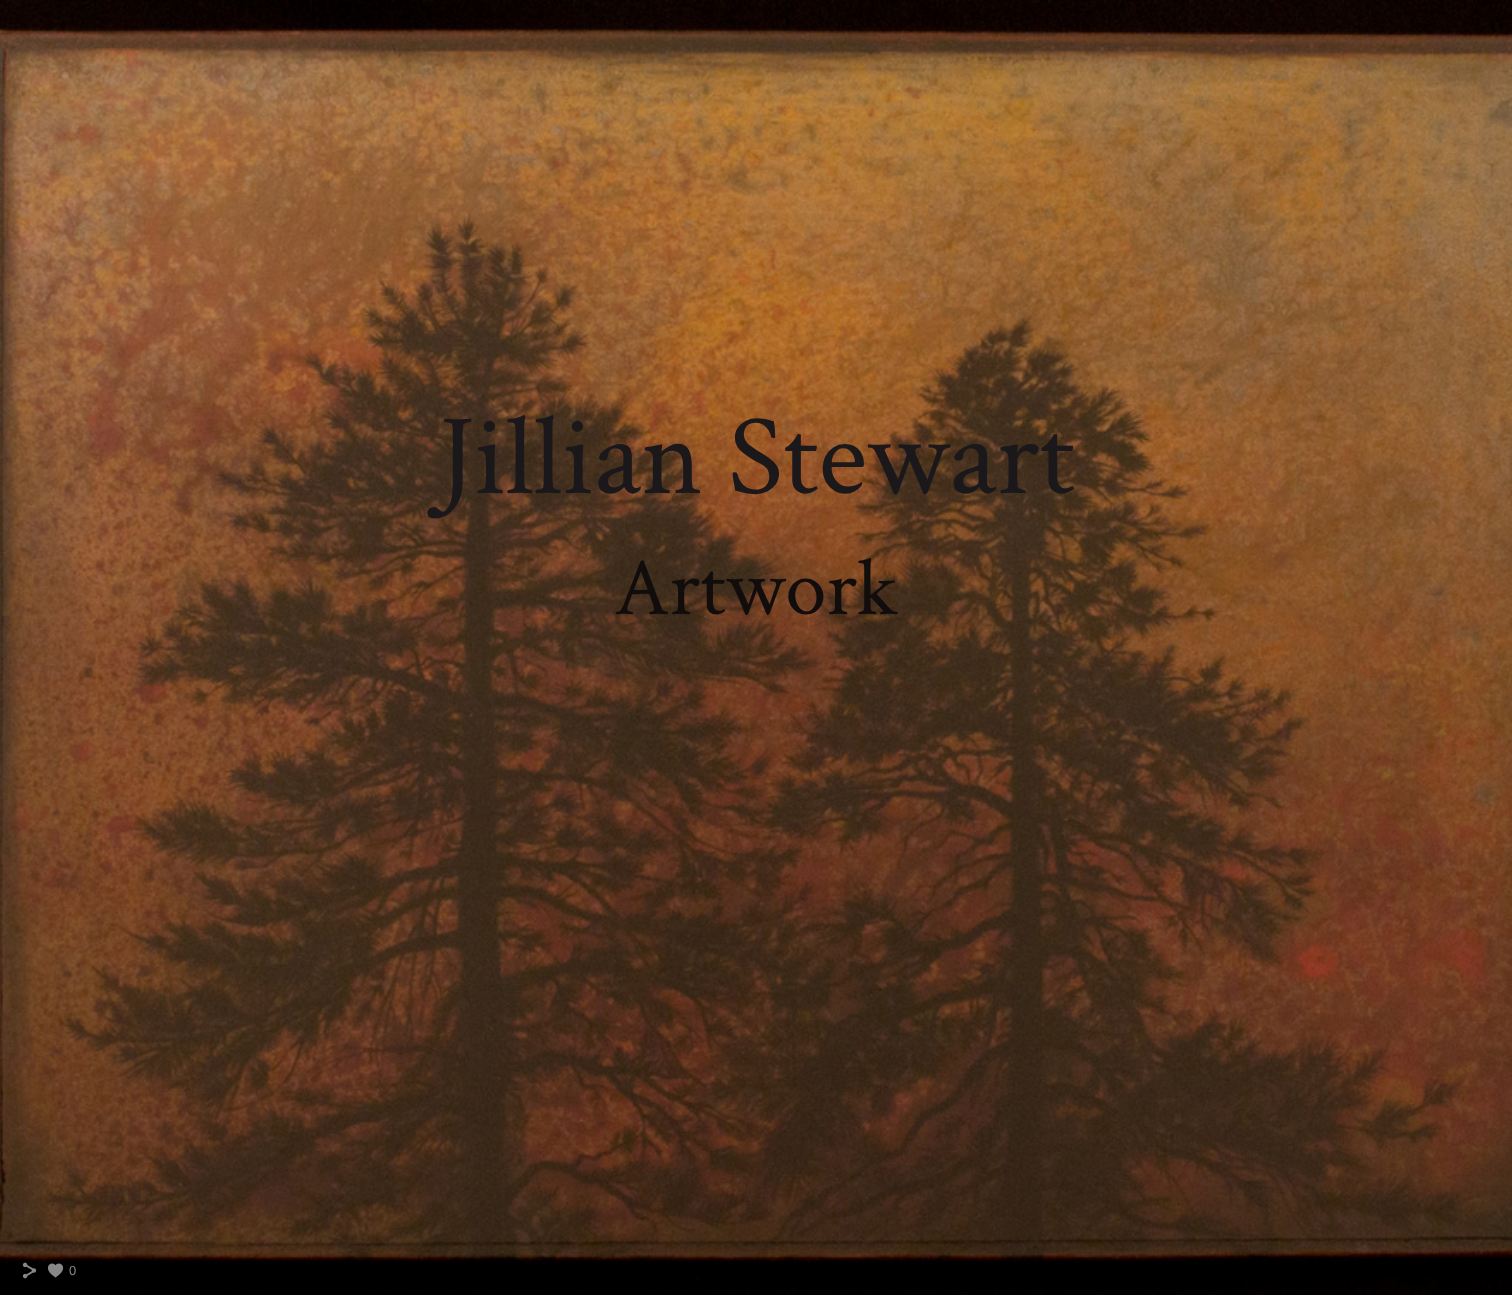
<svg xmlns="http://www.w3.org/2000/svg" xmlns:xlink="http://www.w3.org/1999/xlink" width="1512" height="1295" viewBox="0 0 1512 1295">
<style>
.cls-1{font:115px Crimson Text;fill:#1a181a}
.cls-2{font:83px Crimson Text;fill:#120d0d}
.cls-3{font:13px Liberation Sans;fill:#878787}
</style>
<rect width="100%" height="100%" fill="#ffffff"/>
<image xlink:href="image0.png" x="0" y="0" width="1512" height="1295"/>
<image xlink:href="image1.png" x="22" y="1262" width="15" height="17"/>
<image xlink:href="image2.png" x="47" y="1263" width="17" height="15"/>
<text class="cls-1" x="438" y="493">Jillian Stewart</text>
<text class="cls-2" x="614" y="614">Artwork</text>
<text class="cls-3" x="69" y="1275">0</text>
</svg>
